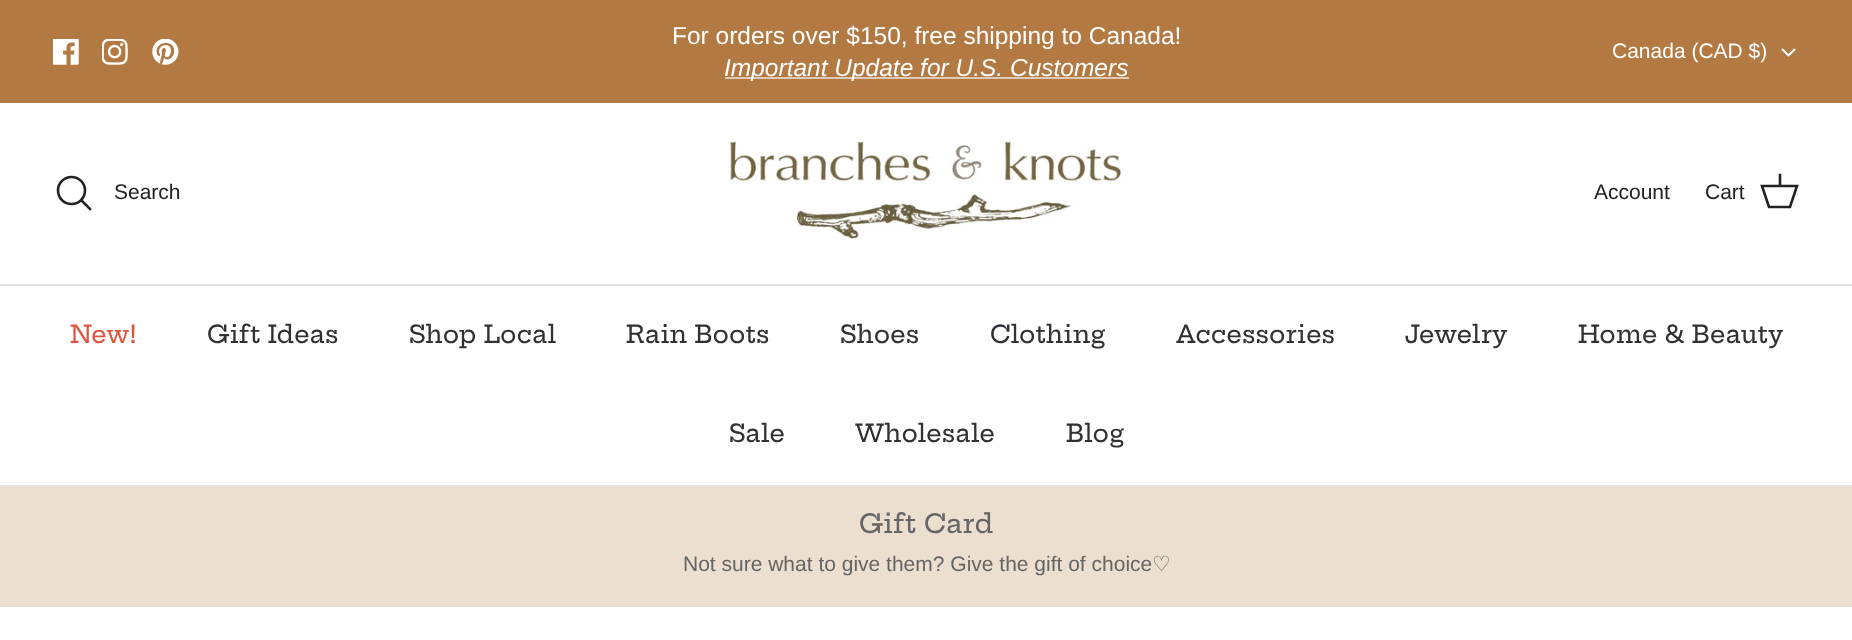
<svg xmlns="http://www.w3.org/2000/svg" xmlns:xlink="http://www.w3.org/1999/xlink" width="1852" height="640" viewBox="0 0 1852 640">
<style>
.cls-1{font:24.5px Arimo;fill:#ffffff}
.cls-2{font:italic 24.5px Arimo;fill:#ffffff}
.cls-3{font:21px Arimo;fill:#ffffff}
.cls-4{font:21px Arimo;fill:#202223}
.cls-5{font:500 24.5px Hepta Slab;fill:#df5641}
.cls-6{font:500 24.5px Hepta Slab;fill:#303036}
.cls-7{font:500 26.25px Hepta Slab;fill:#656565}
.cls-8{font:21px Arimo;fill:#656565}
.cls-9{font:21px DejaVu Sans;fill:#656565}
</style>
<rect width="100%" height="100%" fill="#ffffff"/>
<rect fill="#b37942" x="0" y="0" width="1852" height="103"/>
<image xlink:href="image0.png" x="53" y="39" width="26" height="26"/>
<image xlink:href="image1.png" x="102" y="39" width="26" height="26"/>
<image xlink:href="image2.png" x="152" y="39" width="27" height="26"/>
<rect fill="#e1c9b3" x="725" y="77" width="404" height="2"/>
<path fill="none" stroke="#ffffff" stroke-width="2" stroke-linecap="round" stroke-linejoin="round" d="M1782.5 49.5L1788.5 55.5L1794.5 49.5"/>
<rect fill="#e2e2e2" x="0" y="284" width="1852" height="2"/>
<circle fill="none" stroke="#202223" stroke-width="2.6" cx="71.5" cy="190.5" r="13.5"/>
<path fill="none" stroke="#202223" stroke-width="2.6" stroke-linecap="square" d="M82 201L90 209"/>
<image xlink:href="image3.png" x="729" y="140" width="393" height="100"/>
<path fill="none" stroke="#202223" stroke-width="2.6" d="M1762 186H1797L1790 207H1769Z"/>
<path fill="none" stroke="#202223" stroke-width="2.6" stroke-linecap="square" d="M1780 185.5V175"/>
<rect fill="#e2e2e2" x="0" y="485" width="1852" height="2"/>
<rect fill="#eddfcf" x="0" y="487" width="1852" height="120"/>
<text class="cls-1" x="672" y="44">For orders over $150, free shipping to Canada!</text>
<text class="cls-2" x="724" y="76">Important Update for U.S. Customers</text>
<text class="cls-3" x="1612" y="58">Canada (CAD $)</text>
<text class="cls-4" x="114" y="199">Search</text>
<text class="cls-4" x="1594" y="199">Account</text>
<text class="cls-4" x="1705" y="199">Cart</text>
<text class="cls-5" x="70" y="343">New!</text>
<text class="cls-6" x="207" y="343">Gift Ideas</text>
<text class="cls-6" x="409" y="343">Shop Local</text>
<text class="cls-6" x="626" y="343">Rain Boots</text>
<text class="cls-6" x="840" y="343">Shoes</text>
<text class="cls-6" x="990" y="343">Clothing</text>
<text class="cls-6" x="1176" y="343">Accessories</text>
<text class="cls-6" x="1405" y="343">Jewelry</text>
<text class="cls-6" x="1578" y="343">Home &amp; Beauty</text>
<text class="cls-6" x="729" y="442">Sale</text>
<text class="cls-6" x="855" y="442">Wholesale</text>
<text class="cls-6" x="1066" y="442">Blog</text>
<text class="cls-7" x="859" y="533">Gift Card</text>
<text class="cls-8" x="683" y="571">Not sure what to give them? Give the gift of choice</text>
<text class="cls-9" x="1152" y="571">♡</text>
</svg>
